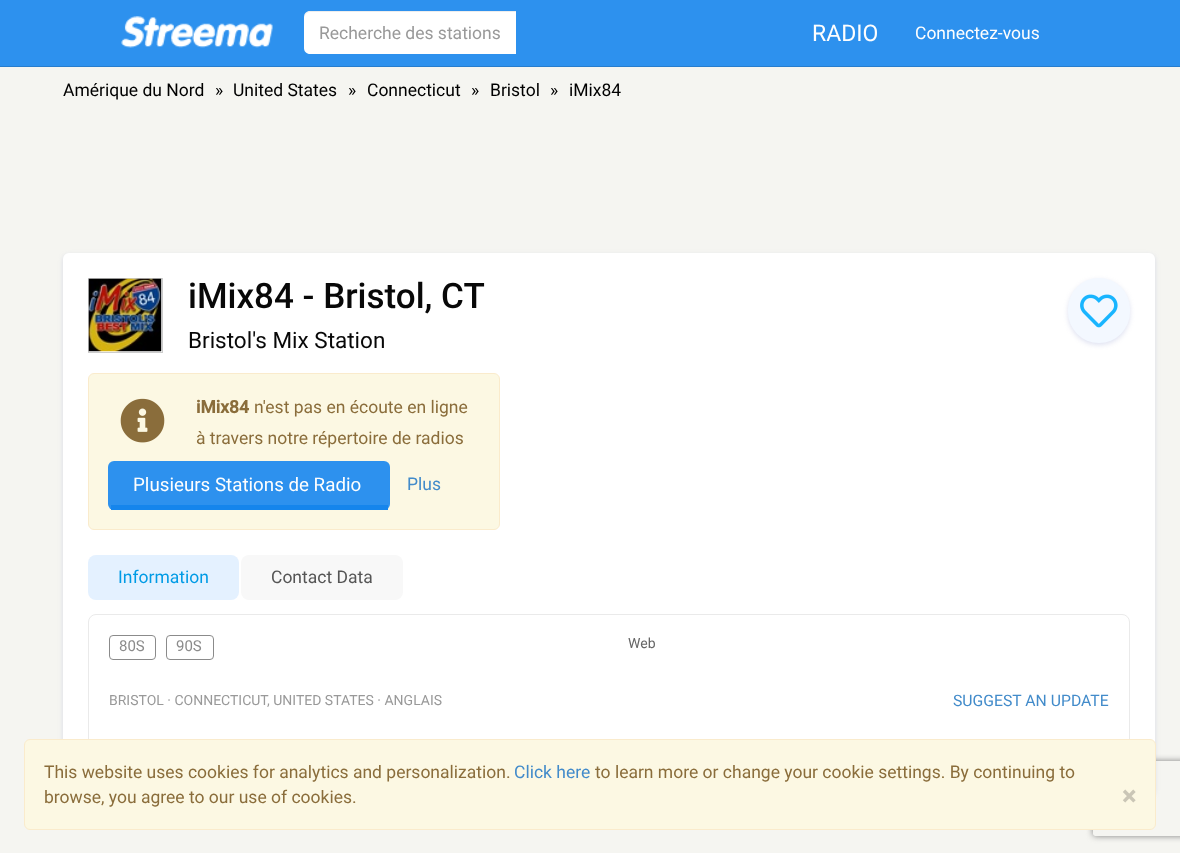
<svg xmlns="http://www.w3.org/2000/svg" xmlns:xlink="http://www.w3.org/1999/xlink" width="1180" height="853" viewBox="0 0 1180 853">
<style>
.cls-1{font:17.5px Roboto;fill:#999999}
.cls-2{font:23px Roboto;fill:#fefefe}
.cls-3{font:17.5px Roboto;fill:#fefefe}
.cls-4{font:17.5px Roboto;fill:#000000}
.cls-5{font:500 35px Roboto;fill:#080808}
.cls-6{font:22.5px Roboto;fill:#080808}
.cls-7{font:bold 17.5px Roboto;fill:#8a6d3b}
.cls-8{font:17.5px Roboto;fill:#8a6d3b}
.cls-9{font:18.75px Roboto;fill:#fefefe}
.cls-10{font:17.5px Roboto;fill:#428bca}
.cls-11{font:17.5px Roboto;fill:#009be5}
.cls-12{font:17.5px Roboto;fill:#555555}
.cls-13{font:15px Roboto;fill:#8b8b8b}
.cls-14{font:14px Roboto;fill:#666666}
.cls-15{font:14px Roboto;fill:#999999}
.cls-16{font:15.75px Roboto;fill:#428bca}
.cls-17{font:bold 26px Roboto;fill:#cac6b6}
</style>
<defs>
<clipPath id="clip1"><path d="M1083 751H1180V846H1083ZM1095.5 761H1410.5C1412 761 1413 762 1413 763.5V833.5C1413 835 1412 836 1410.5 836H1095.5C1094 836 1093 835 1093 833.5V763.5C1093 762 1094 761 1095.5 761Z" clip-rule="evenodd"/></clipPath>
</defs>
<rect width="100%" height="100%" fill="#f5f5f1"/>
<rect fill="#2d91ee" x="0" y="0" width="1180" height="66"/>
<rect fill="#277dcd" x="0" y="66" width="1180" height="1"/>
<image xlink:href="image0.png" x="121" y="16" width="152" height="32"/>
<path fill="#ffffff" d="M310 11H516V54H310C306.5 54 304 51.5 304 48V17C304 13.5 306.5 11 310 11Z"/>
<path fill="#000000" fill-opacity="0.07" d="M310 12H516V11H310C307 11 304 14 304 17V19C304 15 307 12 310 12Z"/>
<rect fill="#7f8bc9" fill-opacity="0.25" filter="blur(2.5px)" x="63" y="255" width="1092" height="541" rx="6"/>
<rect fill="#ffffff" x="63" y="253" width="1092" height="541" rx="6"/>
<rect fill="none" stroke="#cccccc" x="88.5" y="278.5" width="74" height="74"/>
<image xlink:href="image1.png" x="88" y="278" width="74" height="74"/>
<rect fill="#7f8bc9" fill-opacity="0.25" filter="blur(2.5px)" x="1068" y="280" width="62" height="65" rx="31"/>
<rect fill="#f3f8ff" x="1068" y="278" width="62" height="65" rx="31"/>
<image xlink:href="image2.png" x="1080" y="294" width="38" height="34"/>
<rect fill="#fcf8e3" stroke="#faebcc" x="88.5" y="373.5" width="411" height="156" rx="5.5"/>
<image xlink:href="image3.png" x="120" y="398" width="45" height="45"/>
<rect fill="#2d91ee" x="108" y="461" width="282" height="49" rx="6"/>
<rect fill="#1585ec" x="111" y="505" width="277" height="5"/>
<rect fill="#e4f1ff" x="88" y="555" width="151" height="45" rx="8"/>
<rect fill="#f8f8f8" x="241" y="555" width="162" height="45" rx="8"/>
<rect fill="none" stroke="#eaeaea" x="88.5" y="614.5" width="1041" height="135" rx="7.5"/>
<rect fill="none" stroke="#8b8b8b" x="109.5" y="635.5" width="46" height="24" rx="3.5"/>
<rect fill="none" stroke="#8b8b8b" x="166.5" y="635.5" width="47" height="24" rx="3.5"/>
<g clip-path="url(#clip1)">
<rect fill="#808080" filter="blur(3px)" x="1093" y="761" width="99" height="75" rx="2.5"/>
</g>
<rect fill="#fcf8e3" stroke="#faebcc" x="24.5" y="739.5" width="1131" height="90" rx="5.5"/>
<text class="cls-1" x="319" y="39">Recherche des stations</text>
<text class="cls-2" x="812" y="41">RADIO</text>
<text class="cls-3" x="915" y="39">Connectez-vous</text>
<text class="cls-4" x="63" y="96">Amérique du Nord</text>
<text class="cls-4" x="215" y="96">»</text>
<text class="cls-4" x="233" y="96">United States</text>
<text class="cls-4" x="348" y="96">»</text>
<text class="cls-4" x="367" y="96">Connecticut</text>
<text class="cls-4" x="471" y="96">»</text>
<text class="cls-4" x="490" y="96">Bristol</text>
<text class="cls-4" x="550" y="96">»</text>
<text class="cls-4" x="569" y="96">iMix84</text>
<text class="cls-5" x="188" y="308">iMix84 - Bristol, CT</text>
<text class="cls-6" x="188" y="348">Bristol's Mix Station</text>
<text class="cls-7" x="196" y="413">iMix84</text>
<text class="cls-8" x="254" y="413">n'est pas en écoute en ligne</text>
<text class="cls-8" x="196" y="444">à travers notre répertoire de radios</text>
<text class="cls-9" x="133" y="491">Plusieurs Stations de Radio</text>
<text class="cls-10" x="407" y="490">Plus</text>
<text class="cls-11" x="118" y="583">Information</text>
<text class="cls-12" x="271" y="583">Contact Data</text>
<text class="cls-13" x="119" y="651">80S</text>
<text class="cls-13" x="176" y="651">90S</text>
<text class="cls-14" x="628" y="648">Web</text>
<text class="cls-15" x="109" y="705">BRISTOL · CONNECTICUT</text>
<text class="cls-15" x="267" y="705">, UNITED STATES · ANGLAIS</text>
<text class="cls-16" x="953" y="706">SUGGEST AN UPDATE</text>
<text class="cls-8" x="44" y="778">This website uses cookies for analytics and personalization.</text>
<text class="cls-10" x="514" y="778">Click here</text>
<text class="cls-8" x="595" y="778">to learn more or change your cookie settings. By continuing to</text>
<text class="cls-8" x="44" y="803">browse, you agree to our use of cookies.</text>
<text class="cls-17" x="1122" y="805">×</text>
</svg>
